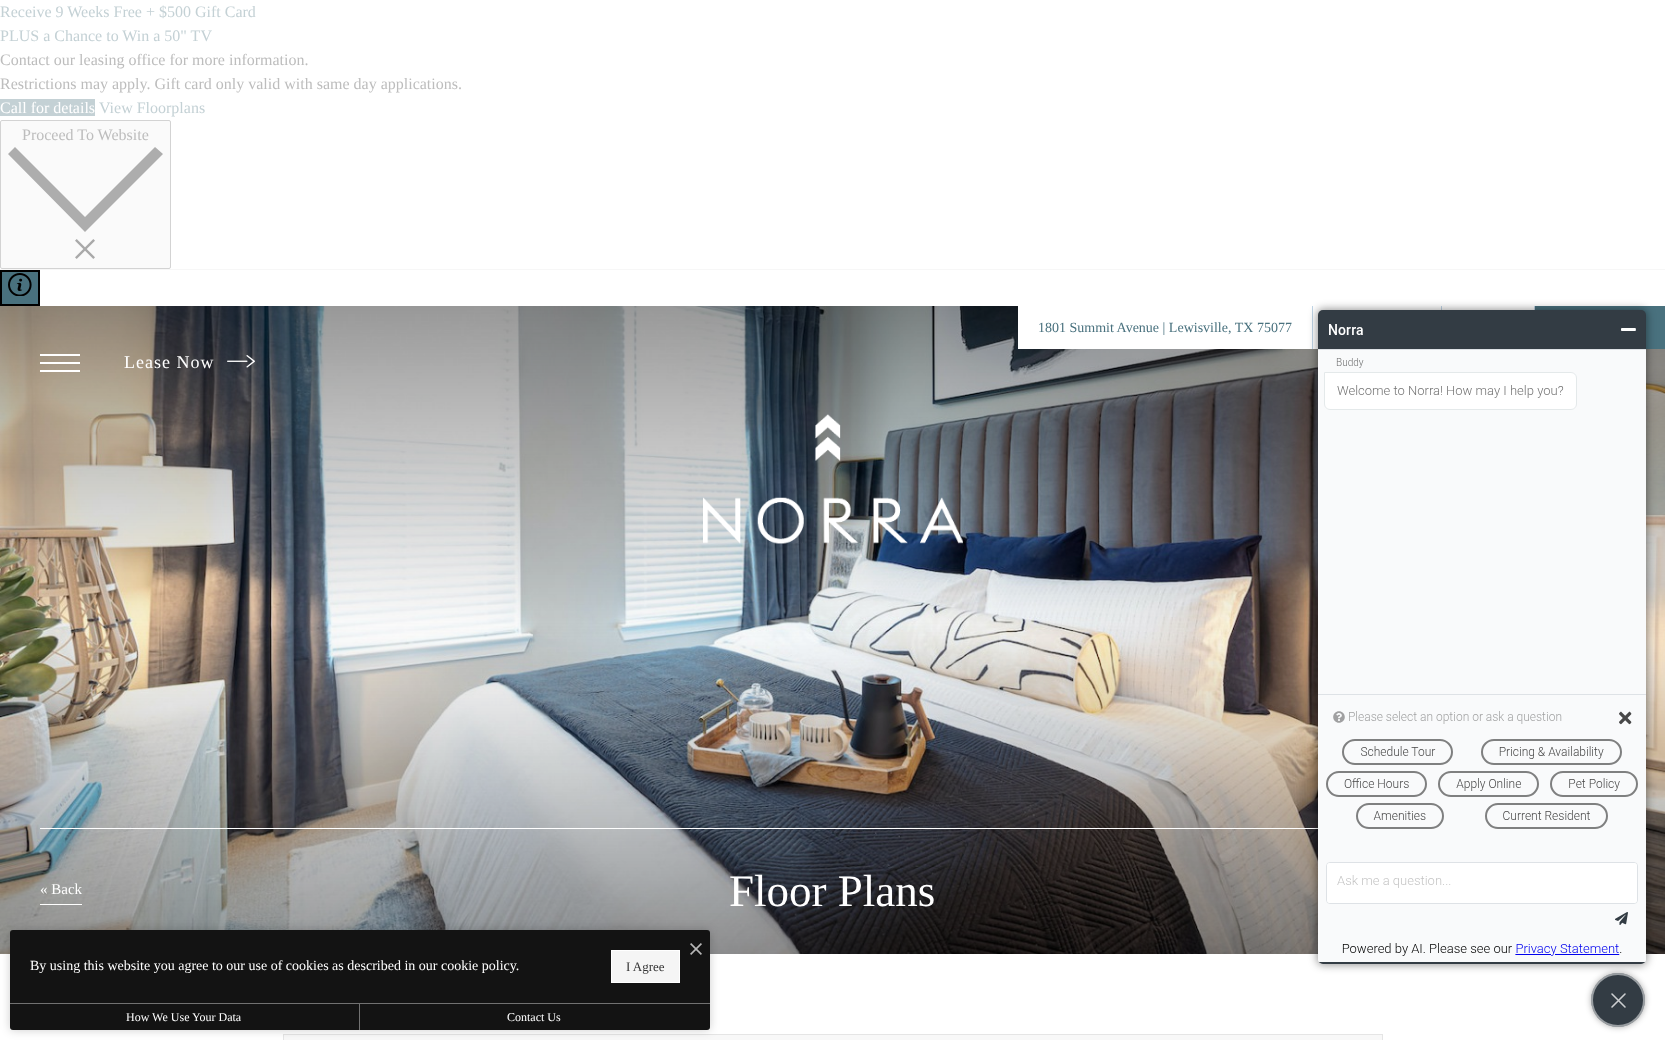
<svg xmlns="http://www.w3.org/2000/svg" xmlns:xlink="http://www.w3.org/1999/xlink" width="1665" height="1040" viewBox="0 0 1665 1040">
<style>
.cls-1{font:16px Liberation Serif;fill:#c4d1d5}
.cls-2{font:16px Liberation Serif;fill:#bdbdbd}
.cls-3{font:16px Liberation Serif;fill:#ffffff}
.cls-4{font:14px Liberation Serif;fill:#49717e}
.cls-5{font:18px Liberation Serif;letter-spacing:1px;fill:#ffffff}
.cls-6{font:15px Liberation Serif;fill:#ffffff}
.cls-7{font:45px Liberation Serif;fill:#ffffff}
.cls-8{font:14px Liberation Serif;fill:#ffffff}
.cls-9{font:13px Liberation Serif;fill:#333333}
.cls-10{font:12px Liberation Serif;fill:#ffffff}
</style>
<rect width="100%" height="100%" fill="#ffffff"/>
<rect fill="#f7f7f7" x="0" y="269" width="1665" height="1"/>
<rect fill="#c4d1d5" x="0" y="99" width="95" height="17"/>
<rect fill="#fafafa" stroke="#d3d3d3" x="0.5" y="120.5" width="170" height="148" rx="1.5"/>
<path fill="#adadad" d="M163 154L155 147L85 217L15 147L8 154L85 232Z"/>
<image xlink:href="image0.png" x="75" y="239" width="20" height="20"/>
<rect fill="#49717e" stroke="#000000" stroke-width="2" x="1" y="271" width="38" height="34"/>
<image xlink:href="image1.png" x="8" y="273" width="24" height="23"/>
<image xlink:href="image4.png" x="0" y="306" width="1665" height="648"/>
<rect fill="#ffffff" x="1018" y="306" width="294" height="43"/>
<rect fill="#c1d5e6" x="1312" y="306" width="1" height="43"/>
<rect fill="#ffffff" x="1313" y="306" width="128" height="43"/>
<rect fill="#c1d5e6" x="1441" y="306" width="1" height="4"/>
<rect fill="#ffffff" x="1442" y="306" width="92" height="4"/>
<rect fill="#c1d5e6" x="1534" y="306" width="1" height="4"/>
<rect fill="#49717e" x="1535" y="306" width="130" height="43"/>
<rect fill="#ffffff" x="40" y="354" width="40" height="2"/>
<rect fill="#ffffff" x="40" y="362" width="40" height="2"/>
<rect fill="#ffffff" x="40" y="370" width="40" height="2"/>
<image xlink:href="image2.png" x="227" y="355" width="28" height="13"/>
<image xlink:href="image3.png" x="703" y="414" width="260" height="130"/>
<rect fill="#ffffff" x="40" y="828" width="1278" height="1"/>
<rect fill="#ffffff" x="40" y="904" width="42" height="1"/>
<rect fill="none" stroke="#e5e5e5" x="283.5" y="1034.5" width="1099" height="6"/>
<rect fill="#f8f8f8" x="284" y="1035" width="1098" height="5"/>
<rect fill="#000000" fill-opacity="0.2" filter="blur(5px)" x="10" y="930" width="700" height="100" rx="3"/>
<rect fill="#131313" x="10" y="930" width="700" height="100" rx="3"/>
<image xlink:href="image5.png" x="690" y="943" width="12" height="12"/>
<rect fill="#f5f5f5" stroke="#ffffff" x="611.5" y="950.5" width="68" height="32"/>
<rect fill="#717171" x="10" y="1003" width="700" height="1"/>
<rect fill="#717171" x="359" y="1004" width="1" height="26"/>
<rect fill="#000000" fill-opacity="0.33" filter="blur(3px)" x="1591" y="973" width="54" height="54" rx="27"/>
<circle fill="#333c44" cx="1618" cy="1000" r="27"/>
<circle fill="none" stroke="#ffffff" stroke-opacity="0.5" stroke-width="2" cx="1618" cy="1000" r="26"/>
<rect fill="#000000" fill-opacity="0.42" filter="blur(4px)" x="1317" y="309" width="330" height="656" rx="6"/>
<image xlink:href="image6.png" x="1318" y="310" width="328" height="654"/>
<path fill="none" stroke="#ccced0" stroke-width="1.6" stroke-linecap="round" stroke-linejoin="round" d="M1612 1007L1625 994M1612 994L1625 1007"/>
<text class="cls-1"><tspan x="0" y="17">Receive 9 Weeks Free + $500 Gift Card</tspan><tspan x="0" y="41">PLUS a Chance to Win a 50" TV</tspan></text>
<text class="cls-2"><tspan x="0" y="65">Contact our leasing office for more information.</tspan><tspan x="0" y="89">Restrictions may apply. Gift card only valid with same day applications.</tspan></text>
<text class="cls-3" x="0" y="113">Call for details</text>
<text class="cls-1" x="99" y="113">View Floorplans</text>
<text class="cls-2" x="22" y="140">Proceed To Website</text>
<text class="cls-4" x="1038" y="332">1801 Summit Avenue | Lewisville, TX 75077</text>
<text class="cls-5" x="124" y="368">Lease Now</text>
<text class="cls-6" x="40" y="894">« Back</text>
<text class="cls-7" x="729" y="906">Floor Plans</text>
<text class="cls-8" x="30" y="970">By using this website you agree to our use of cookies as described in our cookie policy.</text>
<text class="cls-9" x="626" y="971">I Agree</text>
<text class="cls-10" x="126" y="1021">How We Use Your Data</text>
<text class="cls-10" x="507" y="1021">Contact Us</text>
</svg>
